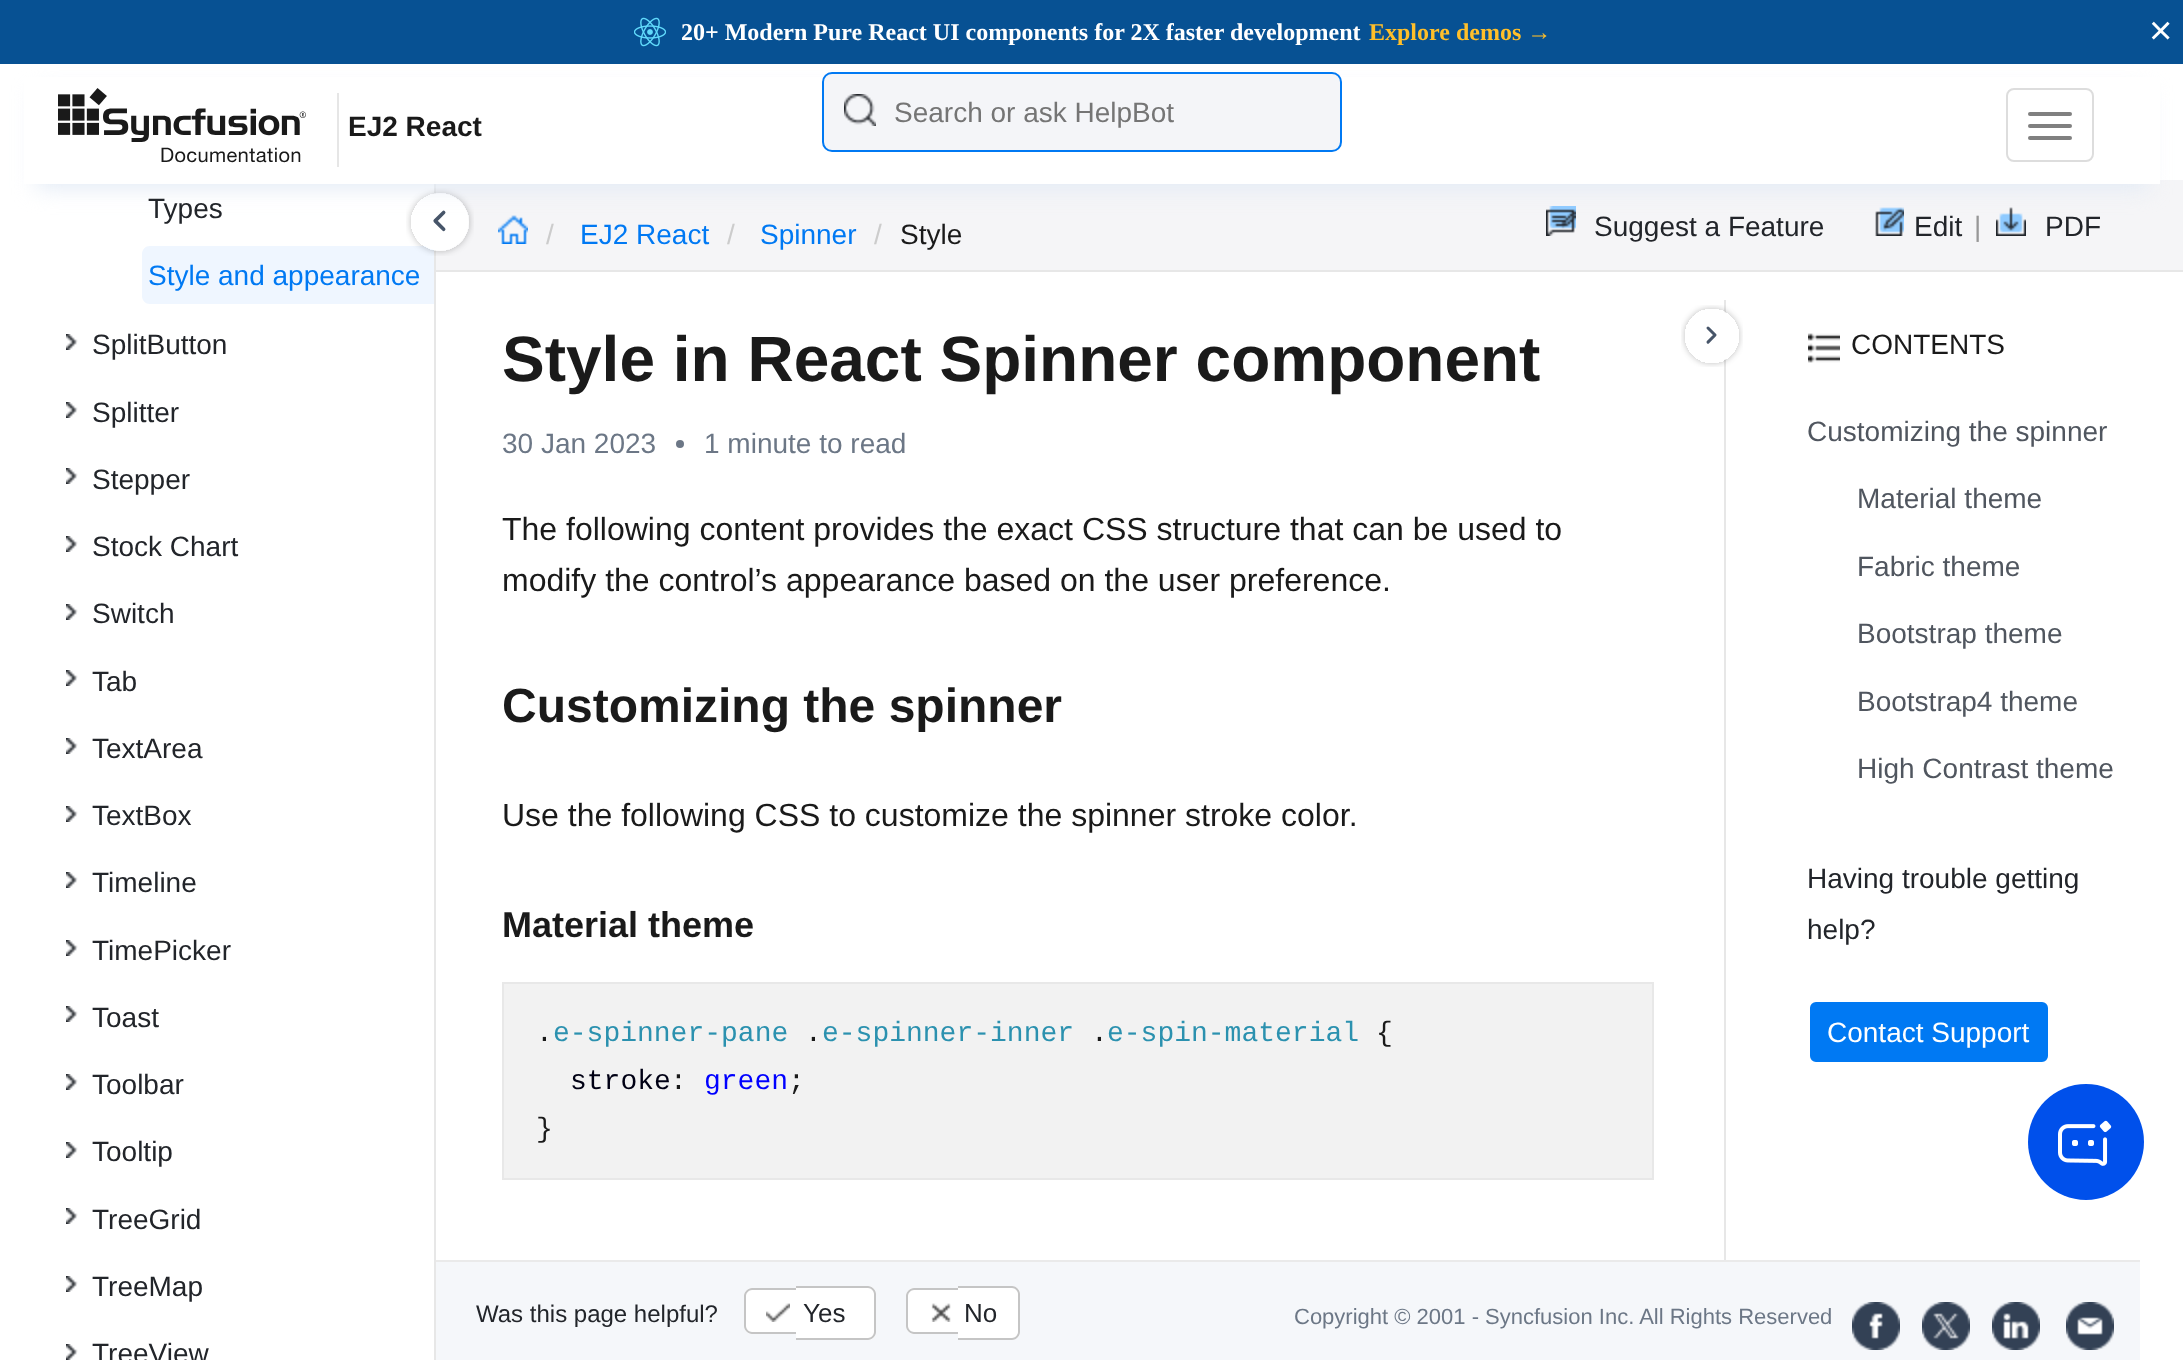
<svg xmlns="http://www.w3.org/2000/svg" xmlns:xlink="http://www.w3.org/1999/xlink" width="2183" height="1360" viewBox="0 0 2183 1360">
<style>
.cls-1{font:bold 24px Liberation Serif;fill:#ffffff}
.cls-2{font:bold 24px Liberation Serif;fill:#ffbf2a}
.cls-3{font:40px Liberation Sans;fill:#ffffff}
.cls-4{font:bold 28px Liberation Sans;fill:#1a1a1a}
.cls-5{font:28px Liberation Sans;fill:#757575}
.cls-6{font:28px Liberation Sans;fill:#cccccc}
.cls-7{font:28px Liberation Sans;fill:#0079f3}
.cls-8{font:28px Liberation Sans;fill:#1a1a1a}
.cls-9{font:28px Liberation Sans;fill:#22252a}
.cls-10{font:28px Liberation Sans;fill:#979797}
.cls-11{font:bold 64px Liberation Sans;fill:#1a1a1a}
.cls-12{font:28px Liberation Sans;fill:#6c7786}
.cls-13{font:32px Liberation Sans;fill:#1a1a1a}
.cls-14{font:bold 48px Liberation Sans;fill:#1a1a1a}
.cls-15{font:bold 36px Liberation Sans;fill:#1a1a1a}
.cls-16{font:28px Liberation Mono;fill:#1a1a1a}
.cls-17{font:28px Liberation Mono;fill:#2b91af}
.cls-18{font:28px Liberation Mono;fill:#000014}
.cls-19{font:28px Liberation Mono;fill:#0000ff}
.cls-20{font:28px Liberation Sans;fill:#50565f}
.cls-21{font:28px Liberation Sans;fill:#ffffff}
.cls-22{font:24px Liberation Sans;fill:#22252a}
.cls-23{font:26px Liberation Sans;fill:#22252a}
.cls-24{font:22px Liberation Sans;fill:#6c7786}
</style>
<rect width="100%" height="100%" fill="#ffffff"/>
<rect fill="#f5f5f7" x="436" y="180" width="1747" height="90"/>
<image xlink:href="image3.png" x="498" y="215" width="30" height="29"/>
<image xlink:href="image4.png" x="1546" y="206" width="30" height="30"/>
<image xlink:href="image5.png" x="1875" y="207" width="29" height="29"/>
<image xlink:href="image6.png" x="1996" y="207" width="30" height="29"/>
<rect fill="#e7e7e7" x="434" y="184" width="2" height="1176"/>
<path fill="#eff6ff" d="M150 246H434V304H150C145.5 304 142 300.5 142 296V254C142 249.5 145.5 246 150 246Z"/>
<image xlink:href="image8.png" x="406" y="188" width="68" height="68"/>
<rect fill="#e2eaf5" filter="blur(11px)" x="36" y="92" width="2112" height="96"/>
<rect fill="#075193" x="0" y="0" width="2183" height="64"/>
<image xlink:href="image0.png" x="634" y="17" width="32" height="30"/>
<rect fill="#ffffff" x="24" y="77" width="2136" height="107"/>
<image xlink:href="image1.png" x="58" y="88" width="281" height="79"/>
<rect fill="#f4f5f8" x="822" y="72" width="520" height="80" rx="10"/>
<image xlink:href="image2.png" x="844" y="94" width="32" height="32"/>
<rect fill="none" stroke="#0079f3" stroke-width="2" x="823" y="73" width="518" height="78" rx="9"/>
<rect fill="none" stroke="#dddddd" stroke-width="2" x="2007" y="89" width="86" height="72" rx="7"/>
<rect fill="#808080" x="2028" y="112" width="44" height="4" rx="2"/>
<rect fill="#808080" x="2028" y="124" width="44" height="4" rx="2"/>
<rect fill="#808080" x="2028" y="136" width="44" height="4" rx="2"/>
<rect fill="#e7e7e7" x="436" y="270" width="1747" height="2"/>
<image xlink:href="image7.png" x="66" y="334" width="12" height="16"/>
<image xlink:href="image7.png" x="66" y="402" width="12" height="16"/>
<image xlink:href="image7.png" x="66" y="468" width="12" height="16"/>
<image xlink:href="image7.png" x="66" y="536" width="12" height="16"/>
<image xlink:href="image7.png" x="66" y="604" width="12" height="16"/>
<image xlink:href="image7.png" x="66" y="670" width="12" height="16"/>
<image xlink:href="image7.png" x="66" y="738" width="12" height="16"/>
<image xlink:href="image7.png" x="66" y="806" width="12" height="16"/>
<image xlink:href="image7.png" x="66" y="872" width="12" height="16"/>
<image xlink:href="image7.png" x="66" y="940" width="12" height="16"/>
<image xlink:href="image7.png" x="66" y="1006" width="12" height="16"/>
<image xlink:href="image7.png" x="66" y="1074" width="12" height="16"/>
<image xlink:href="image7.png" x="66" y="1142" width="12" height="16"/>
<image xlink:href="image7.png" x="66" y="1208" width="12" height="16"/>
<image xlink:href="image7.png" x="66" y="1276" width="12" height="16"/>
<image xlink:href="image7.png" x="66" y="1344" width="12" height="16"/>
<rect fill="#e7e7e7" x="1724" y="300" width="2" height="960"/>
<circle fill="#6c7786" cx="680" cy="444" r="4"/>
<rect fill="#f2f2f2" stroke="#e8e8e8" stroke-width="2" x="503" y="983" width="1150" height="196"/>
<image xlink:href="image9.png" x="1681" y="305" width="62" height="62"/>
<image xlink:href="image10.png" x="1808" y="333" width="32" height="30"/>
<rect fill="#0079f3" stroke="#ffffff" stroke-width="2" x="1809" y="1001" width="240" height="62" rx="7"/>
<circle fill="#0050eb" cx="2086" cy="1142" r="58"/>
<image xlink:href="image11.png" x="2058" y="1120" width="54" height="46"/>
<rect fill="#f5f7fa" x="436" y="1262" width="1704" height="98"/>
<rect fill="#eaeaea" x="436" y="1260" width="1704" height="2"/>
<path fill="#ffffff" d="M752 1288H796V1334H752C747.5 1334 744 1330.5 744 1326V1296C744 1291.5 747.5 1288 752 1288Z"/>
<path fill="#c5c5c5" fill-rule="evenodd" d="M752 1288H796V1334H752C748 1334 744 1330 744 1326V1296C744 1292 748 1288 752 1288ZM752 1290H796V1332H752C749 1332 746 1329 746 1326V1296C746 1293 749 1290 752 1290Z"/>
<path fill="#ffffff" d="M796 1286H868C872.5 1286 876 1289.5 876 1294V1332C876 1336.5 872.5 1340 868 1340H796Z"/>
<path fill="#c5c5c5" fill-rule="evenodd" d="M796 1286H868C872 1286 876 1290 876 1294V1332C876 1336 872 1340 868 1340H796ZM796 1288H868C871 1288 874 1291 874 1294V1332C874 1335 871 1338 868 1338H796Z"/>
<image xlink:href="image12.png" x="766" y="1303" width="24" height="19"/>
<path fill="#ffffff" d="M914 1288H958V1334H914C909.5 1334 906 1330.5 906 1326V1296C906 1291.5 909.5 1288 914 1288Z"/>
<path fill="#c5c5c5" fill-rule="evenodd" d="M914 1288H958V1334H914C910 1334 906 1330 906 1326V1296C906 1292 910 1288 914 1288ZM914 1290H958V1332H914C911 1332 908 1329 908 1326V1296C908 1293 911 1290 914 1290Z"/>
<path fill="#ffffff" d="M958 1286H1012C1016.5 1286 1020 1289.5 1020 1294V1332C1020 1336.5 1016.5 1340 1012 1340H958Z"/>
<path fill="#c5c5c5" fill-rule="evenodd" d="M958 1286H1012C1016 1286 1020 1290 1020 1294V1332C1020 1336 1016 1340 1012 1340H958ZM958 1288H1012C1015 1288 1018 1291 1018 1294V1332C1018 1335 1015 1338 1012 1338H958Z"/>
<image xlink:href="image13.png" x="931" y="1303" width="20" height="19"/>
<image xlink:href="image14.png" x="1852" y="1302" width="48" height="48"/>
<image xlink:href="image15.png" x="1922" y="1302" width="48" height="48"/>
<image xlink:href="image16.png" x="1992" y="1302" width="48" height="48"/>
<image xlink:href="image17.png" x="2066" y="1302" width="48" height="48"/>
<text class="cls-1" x="681" y="40">20+ Modern Pure React UI components for 2X faster development</text>
<text class="cls-2" x="1369" y="40">Explore demos →</text>
<text class="cls-3" x="2149" y="44">×</text>
<text class="cls-4" x="348" y="136">EJ2 React</text>
<text class="cls-5" x="894" y="122">Search or ask HelpBot</text>
<text class="cls-6" x="546" y="244">/</text>
<text class="cls-7" x="580" y="244">EJ2 React</text>
<text class="cls-6" x="727" y="244">/</text>
<text class="cls-7" x="760" y="244">Spinner</text>
<text class="cls-6" x="874" y="244">/</text>
<text class="cls-8" x="900" y="244">Style</text>
<text class="cls-9" x="1594" y="236">Suggest a Feature</text>
<text class="cls-9" x="1914" y="236">Edit</text>
<text class="cls-10" x="1974" y="236">|</text>
<text class="cls-9" x="2045" y="236">PDF</text>
<text class="cls-9" x="148" y="218">Types</text>
<text class="cls-7" x="148" y="285">Style and appearance</text>
<text class="cls-9" x="92" y="354">SplitButton</text>
<text class="cls-9" x="92" y="422">Splitter</text>
<text class="cls-9" x="92" y="489">Stepper</text>
<text class="cls-9" x="92" y="556">Stock Chart</text>
<text class="cls-9" x="92" y="623">Switch</text>
<text class="cls-9" x="92" y="691">Tab</text>
<text class="cls-9" x="92" y="758">TextArea</text>
<text class="cls-9" x="92" y="825">TextBox</text>
<text class="cls-9" x="92" y="892">Timeline</text>
<text class="cls-9" x="92" y="960">TimePicker</text>
<text class="cls-9" x="92" y="1027">Toast</text>
<text class="cls-9" x="92" y="1094">Toolbar</text>
<text class="cls-9" x="92" y="1161">Tooltip</text>
<text class="cls-9" x="92" y="1229">TreeGrid</text>
<text class="cls-9" x="92" y="1296">TreeMap</text>
<text class="cls-9" x="92" y="1363">TreeView</text>
<text class="cls-11" x="502" y="381">Style in React Spinner component</text>
<text class="cls-12" x="502" y="453">30 Jan 2023</text>
<text class="cls-12" x="704" y="453">1 minute to read</text>
<text class="cls-13"><tspan x="502" y="540">The following content provides the exact CSS structure that can be used to</tspan><tspan x="502" y="591">modify the control’s appearance based on the user preference.</tspan></text>
<text class="cls-14" x="502" y="722">Customizing the spinner</text>
<text class="cls-13" x="502" y="826">Use the following CSS to customize the spinner stroke color.</text>
<text class="cls-15" x="502" y="937">Material theme</text>
<text class="cls-16" x="536" y="1041">.</text>
<text class="cls-17" x="553" y="1041">e-spinner-pane</text>
<text class="cls-16" x="805" y="1041">.</text>
<text class="cls-17" x="822" y="1041">e-spinner-inner</text>
<text class="cls-16" x="1091" y="1041">.</text>
<text class="cls-17" x="1107" y="1041">e-spin-material</text>
<text class="cls-16" x="1376" y="1041">{</text>
<text class="cls-18" x="570" y="1089">stroke</text>
<text class="cls-16" x="670" y="1089">:</text>
<text class="cls-19" x="704" y="1089">green</text>
<text class="cls-16" x="788" y="1089">;</text>
<text class="cls-16" x="536" y="1137">}</text>
<text class="cls-8" x="1851" y="354">CONTENTS</text>
<text class="cls-20" x="1807" y="441">Customizing the spinner</text>
<text class="cls-20" x="1857" y="508">Material theme</text>
<text class="cls-20" x="1857" y="576">Fabric theme</text>
<text class="cls-20" x="1857" y="643">Bootstrap theme</text>
<text class="cls-20" x="1857" y="711">Bootstrap4 theme</text>
<text class="cls-20" x="1857" y="778">High Contrast theme</text>
<text class="cls-9"><tspan x="1807" y="888">Having trouble getting</tspan><tspan x="1807" y="939">help?</tspan></text>
<text class="cls-21" x="1827" y="1042">Contact Support</text>
<text class="cls-22" x="476" y="1322">Was this page helpful?</text>
<text class="cls-23" x="803" y="1322">Yes</text>
<text class="cls-23" x="964" y="1322">No</text>
<text class="cls-24" x="1294" y="1324">Copyright © 2001 - Syncfusion Inc. All Rights Reserved</text>
</svg>
